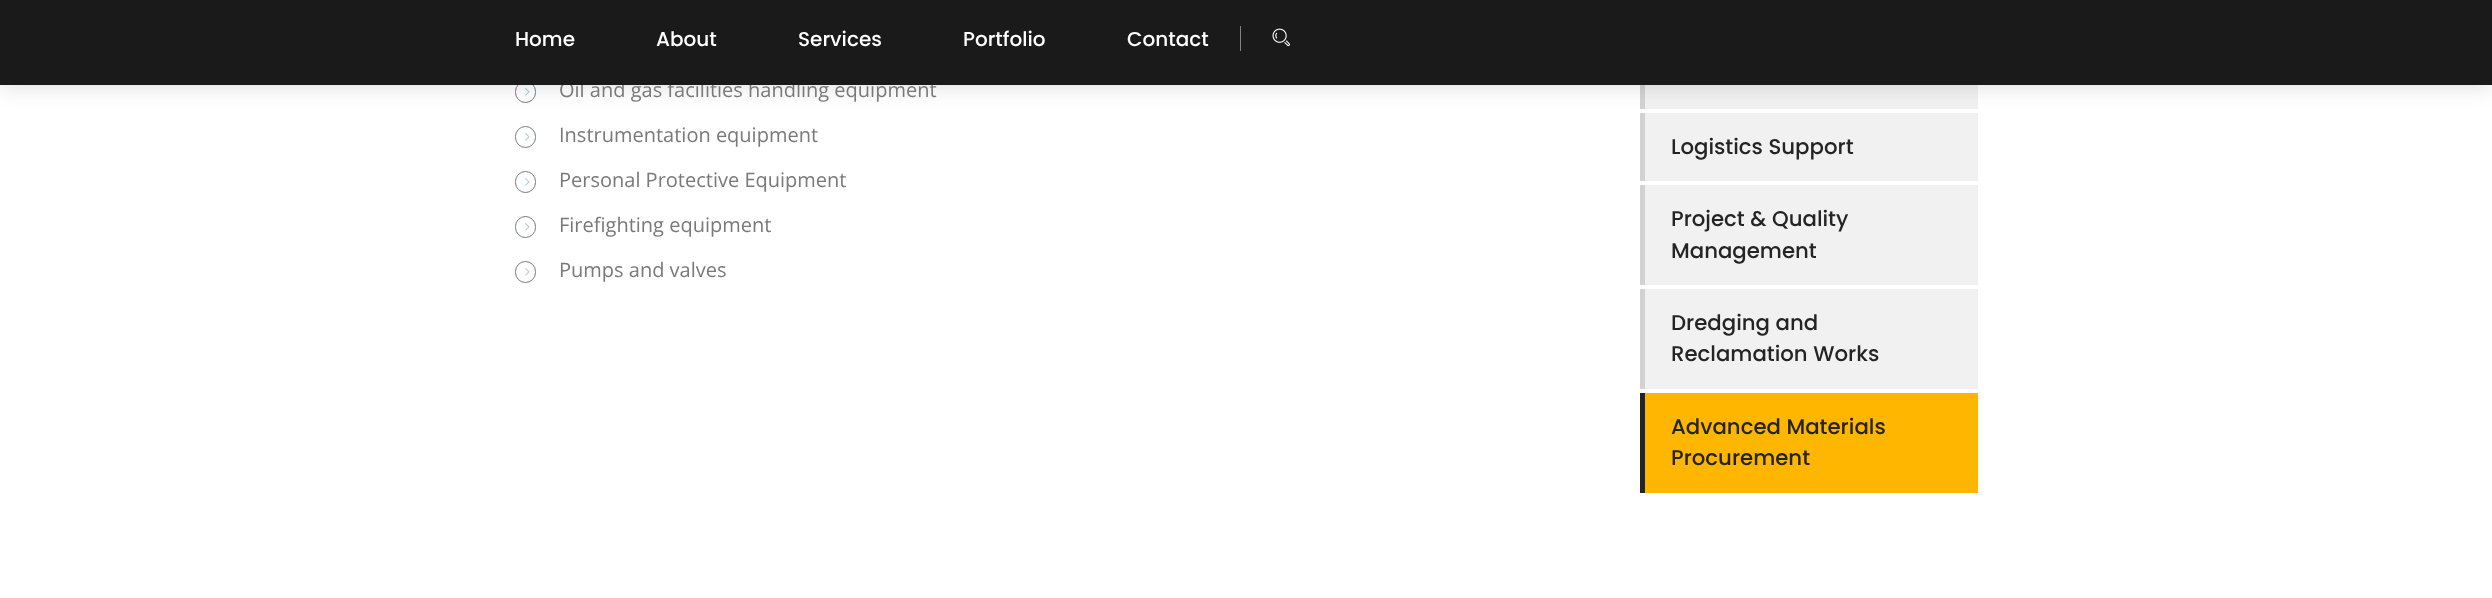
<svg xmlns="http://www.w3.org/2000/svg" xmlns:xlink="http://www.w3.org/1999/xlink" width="2492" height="598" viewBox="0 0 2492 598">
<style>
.cls-1{font:20px Open Sans;fill:#797979}
.cls-2{font:500 20px Poppins;fill:#ffffff}
.cls-3{font:500 21.25px Poppins;fill:#242424}
</style>
<rect width="100%" height="100%" fill="#ffffff"/>
<rect fill="none" stroke="#797979" x="515.5" y="81.5" width="20" height="21" rx="10"/>
<image xlink:href="image1.png" x="525" y="88" width="5" height="8"/>
<rect fill="#f1f1f1" x="1645" y="85" width="333" height="24"/>
<rect fill="#d2d2d2" x="1640" y="85" width="5" height="24"/>
<rect fill="#f1f1f1" x="1645" y="113" width="333" height="68"/>
<rect fill="#d2d2d2" x="1640" y="113" width="5" height="68"/>
<rect fill="#000000" fill-opacity="0.1" filter="blur(9.5px)" x="0" y="4" width="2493" height="85"/>
<rect fill="none" stroke="#797979" x="515.5" y="126.5" width="20" height="21" rx="10"/>
<image xlink:href="image1.png" x="525" y="133" width="5" height="8"/>
<rect fill="none" stroke="#797979" x="515.5" y="171.5" width="20" height="21" rx="10"/>
<image xlink:href="image1.png" x="525" y="178" width="5" height="8"/>
<rect fill="none" stroke="#797979" x="515.5" y="216.5" width="20" height="21" rx="10"/>
<image xlink:href="image1.png" x="525" y="223" width="5" height="8"/>
<rect fill="none" stroke="#797979" x="515.5" y="261.5" width="20" height="21" rx="10"/>
<image xlink:href="image1.png" x="525" y="268" width="5" height="8"/>
<rect fill="#f1f1f1" x="1645" y="185" width="333" height="100"/>
<rect fill="#d2d2d2" x="1640" y="185" width="5" height="100"/>
<rect fill="#f1f1f1" x="1645" y="289" width="333" height="100"/>
<rect fill="#d2d2d2" x="1640" y="289" width="5" height="100"/>
<rect fill="#242424" x="1640" y="393" width="5" height="100"/>
<rect fill="#ffb600" x="1645" y="393" width="333" height="100"/>
<text class="cls-1" x="559" y="97">Oil and gas facilities handling equipment</text>
<rect fill="#1a1a1a" x="0" y="0" width="2492" height="85"/>
<image xlink:href="image0.png" x="1272" y="28" width="18" height="19"/>
<rect fill="#828282" x="1240" y="26" width="1" height="25"/>
<text class="cls-2" x="1127" y="46">Contact</text>
<text class="cls-2" x="963" y="46">Portfolio</text>
<text class="cls-2" x="798" y="46">Services</text>
<text class="cls-2" x="656" y="46">About</text>
<text class="cls-2" x="515" y="46">Home</text>
<text class="cls-1" x="559" y="142">Instrumentation equipment</text>
<text class="cls-1" x="559" y="187">Personal Protective Equipment</text>
<text class="cls-1" x="559" y="232">Firefighting equipment</text>
<text class="cls-1" x="559" y="277">Pumps and valves</text>
<text class="cls-3" x="1671" y="154">Logistics Support</text>
<text class="cls-3"><tspan x="1671" y="226">Project &amp; Quality</tspan><tspan x="1671" y="258">Management</tspan></text>
<text class="cls-3"><tspan x="1671" y="330">Dredging and</tspan><tspan x="1671" y="361">Reclamation Works</tspan></text>
<text class="cls-3"><tspan x="1671" y="434">Advanced Materials</tspan><tspan x="1671" y="465">Procurement</tspan></text>
</svg>
